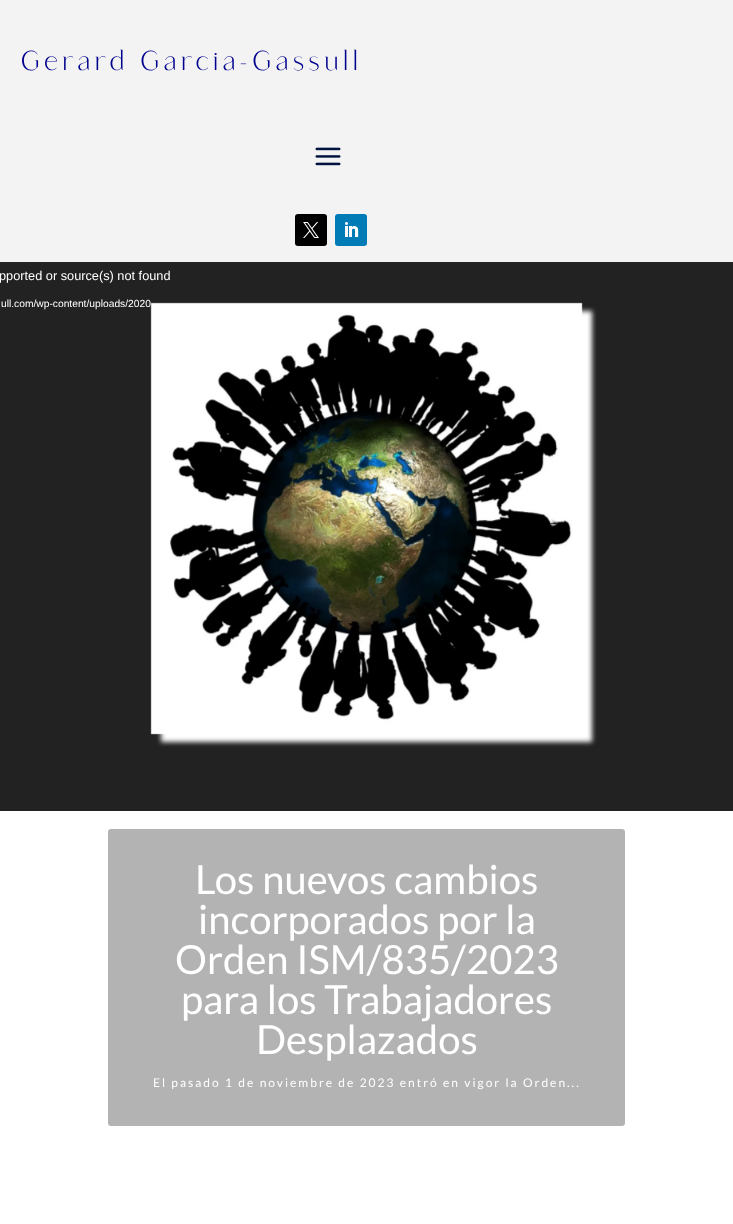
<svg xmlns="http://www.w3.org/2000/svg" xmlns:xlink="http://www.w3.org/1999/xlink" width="733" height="1224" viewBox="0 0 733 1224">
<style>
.cls-1{font:27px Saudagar;letter-spacing:5px;fill:#00008e}
.cls-2{font:12.75px Liberation Sans;fill:#ffffff}
.cls-3{font:10.25px Liberation Sans;fill:#ffffff}
.cls-4{font:40px Lato;fill:#ffffff}
.cls-5{font:12px Lato;letter-spacing:2px;fill:#ffffff}
</style>
<rect width="100%" height="100%" fill="#ffffff"/>
<rect fill="#f3f3f3" x="0" y="0" width="733" height="262"/>
<image xlink:href="image0.png" x="315" y="147" width="26" height="19"/>
<rect fill="#000000" x="295" y="214" width="32" height="32" rx="3"/>
<image xlink:href="image1.png" x="303" y="222" width="16" height="16"/>
<rect fill="#007bb6" x="335" y="214" width="32" height="32" rx="3"/>
<image xlink:href="image2.png" x="345" y="222" width="14" height="15"/>
<rect fill="#222222" x="0" y="262" width="733" height="549"/>
<rect fill="#ffffff" filter="blur(2.5px)" x="161" y="311" width="431" height="431"/>
<rect fill="#b3b3b3" x="108" y="829" width="517" height="297" rx="3"/>
<text class="cls-1" x="22" y="70">Gerard Garcia-Gassull</text>
<text class="cls-2" x="-1" y="280">pported or source(s) not found</text>
<text class="cls-3" x="1" y="307">ull.com/wp-content/uploads/2020</text>
<image xlink:href="image3.png" x="150" y="302" width="433" height="433"/>
<text class="cls-4" x="195" y="894">Los nuevos cambios</text>
<text class="cls-4" x="198" y="934">incorporados por la</text>
<text class="cls-4" x="175" y="974">Orden ISM/835/2023</text>
<text class="cls-4" x="181" y="1014">para los Trabajadores</text>
<text class="cls-4" x="256" y="1054">Desplazados</text>
<text class="cls-5" x="153" y="1087">El pasado 1 de noviembre de 2023 entró en vigor la Orden...</text>
</svg>
